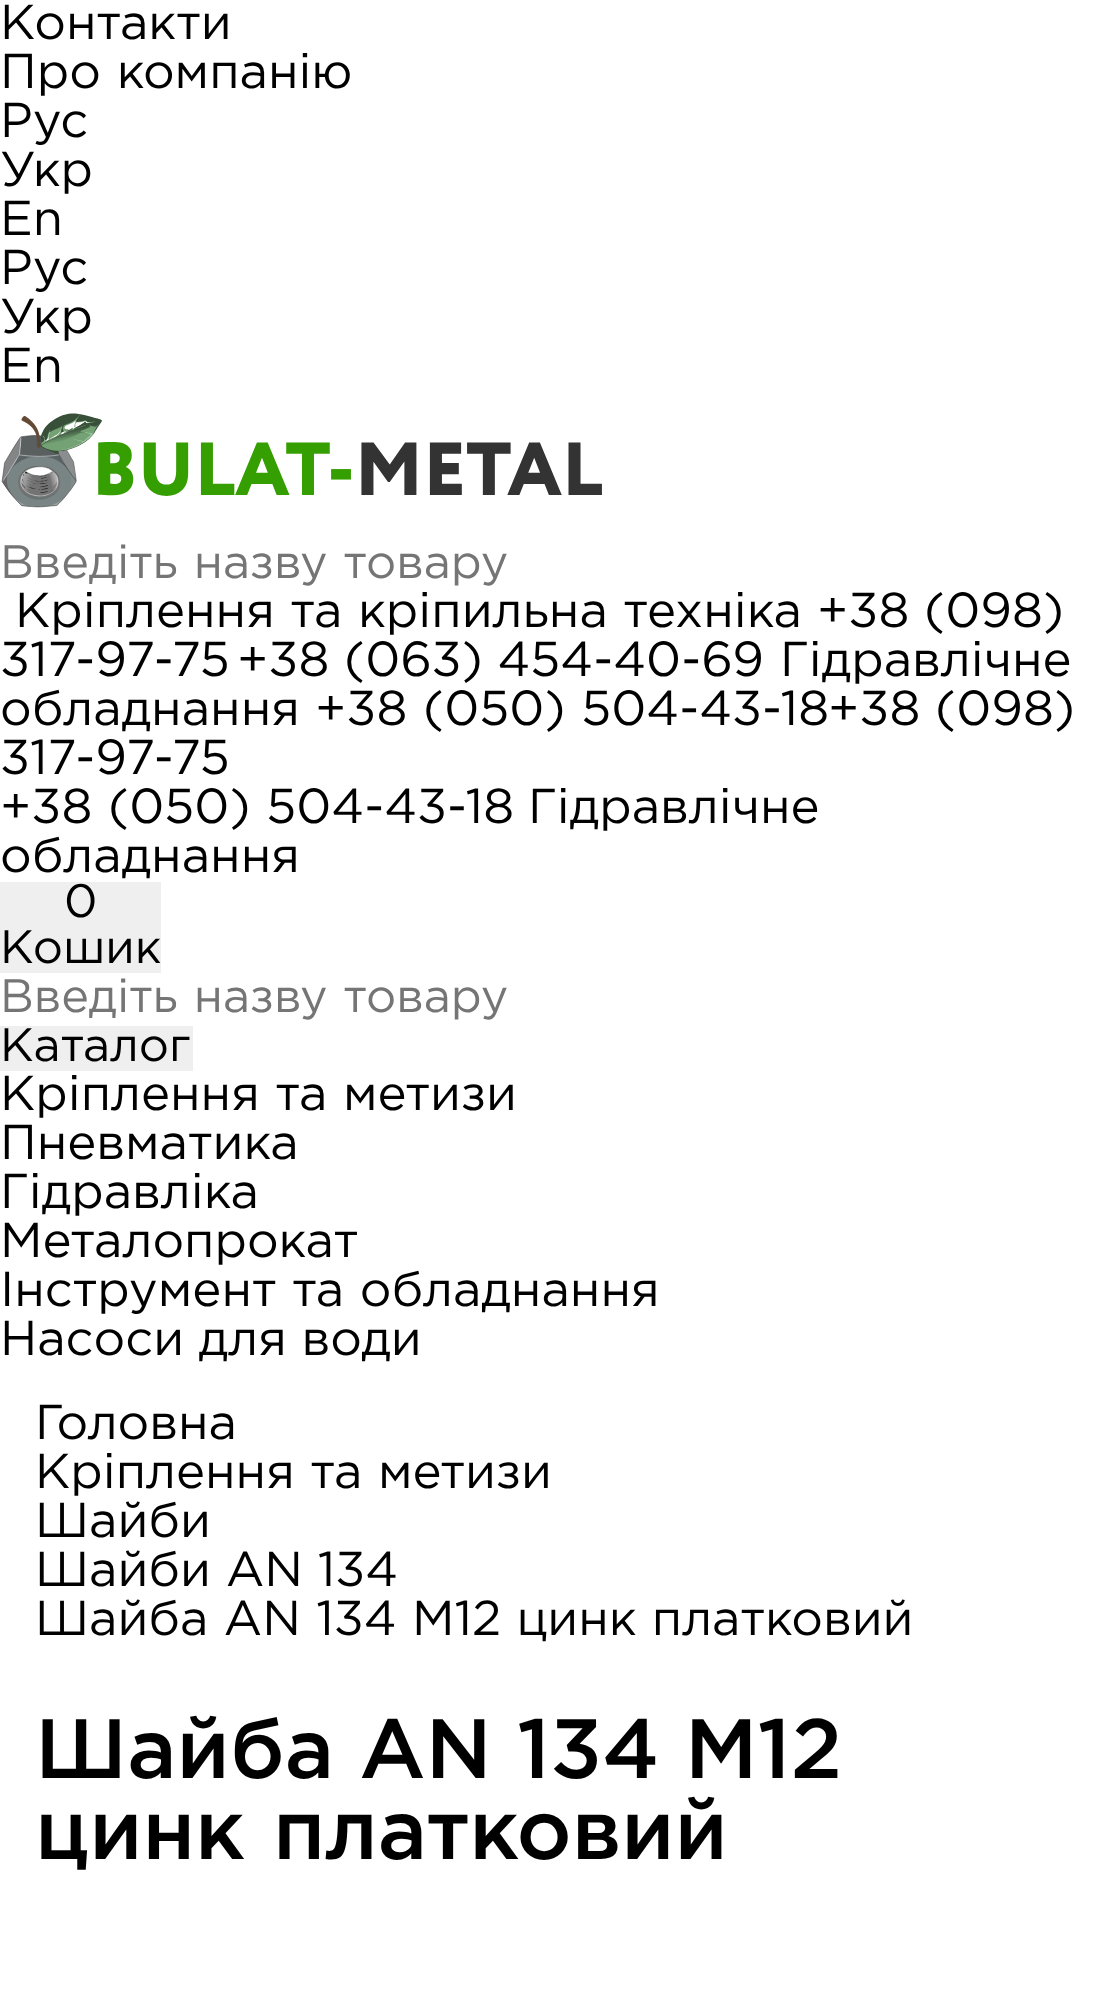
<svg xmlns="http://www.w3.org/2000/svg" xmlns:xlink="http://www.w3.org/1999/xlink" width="1106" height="2008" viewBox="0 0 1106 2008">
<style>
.cls-1{font:49px Gotham;fill:#000000}
.cls-2{font:46.75px Gotham;fill:#757575}
.cls-3{font:46.75px Gotham;fill:#000000}
.cls-4{font:500 84px Gotham;fill:#000000}
</style>
<rect width="100%" height="100%" fill="#ffffff"/>
<image xlink:href="image0.png" x="1" y="413" width="601" height="95"/>
<rect fill="#efefef" x="0" y="882" width="161" height="91"/>
<rect fill="#efefef" x="0" y="1026" width="193" height="45"/>
<text class="cls-1"><tspan x="0" y="39">Контакти</tspan><tspan x="0" y="88" word-spacing="1">Про компанію</tspan><tspan x="0" y="137">Рус</tspan><tspan x="0" y="186">Укр</tspan><tspan x="0" y="235">En</tspan><tspan x="0" y="284">Рус</tspan><tspan x="0" y="333">Укр</tspan><tspan x="0" y="382">En</tspan></text>
<text class="cls-2" x="0" y="578" word-spacing="2">Введіть назву товару</text>
<text class="cls-1" x="15" y="627" word-spacing="1">Кріплення та кріпильна техніка</text>
<text class="cls-1" x="817" y="627">+38 (098)</text>
<text class="cls-1" x="0" y="676">317-97-75</text>
<text class="cls-1" x="237" y="676">+38 (063) 454-40-69</text>
<text class="cls-1" x="780" y="676">Гідравлічне</text>
<text class="cls-1" x="0" y="725">обладнання</text>
<text class="cls-1" x="315" y="725" word-spacing="1">+38 (050) 504-43-18</text>
<text class="cls-1" x="828" y="725">+38 (098)</text>
<text class="cls-1"><tspan x="0" y="774">317-97-75</tspan><tspan x="0" y="823" word-spacing="1">+38 (050) 504-43-18</tspan></text>
<text class="cls-1" x="528" y="823">Гідравлічне</text>
<text class="cls-1" x="0" y="872">обладнання</text>
<text class="cls-3" x="64" y="917">0</text>
<text class="cls-3" x="0" y="963">Кошик</text>
<text class="cls-2" x="0" y="1012" word-spacing="2">Введіть назву товару</text>
<text class="cls-3" x="0" y="1061">Каталог</text>
<text class="cls-1"><tspan x="0" y="1110" word-spacing="1">Кріплення та метизи</tspan><tspan x="0" y="1159">Пневматика</tspan><tspan x="0" y="1208">Гідравліка</tspan><tspan x="0" y="1257">Металопрокат</tspan><tspan x="0" y="1306" word-spacing="1">Інструмент та обладнання</tspan><tspan x="0" y="1355">Насоси для води</tspan></text>
<text class="cls-1"><tspan x="35" y="1439">Головна</tspan><tspan x="35" y="1488" word-spacing="1">Кріплення та метизи</tspan><tspan x="35" y="1537">Шайби</tspan><tspan x="35" y="1586">Шайби AN 134</tspan><tspan x="35" y="1635" word-spacing="0.5">Шайба AN 134 М12 цинк платковий</tspan></text>
<text class="cls-4"><tspan x="35" y="1778">Шайба AN 134 М12</tspan><tspan x="35" y="1859" word-spacing="3">цинк платковий</tspan></text>
</svg>
